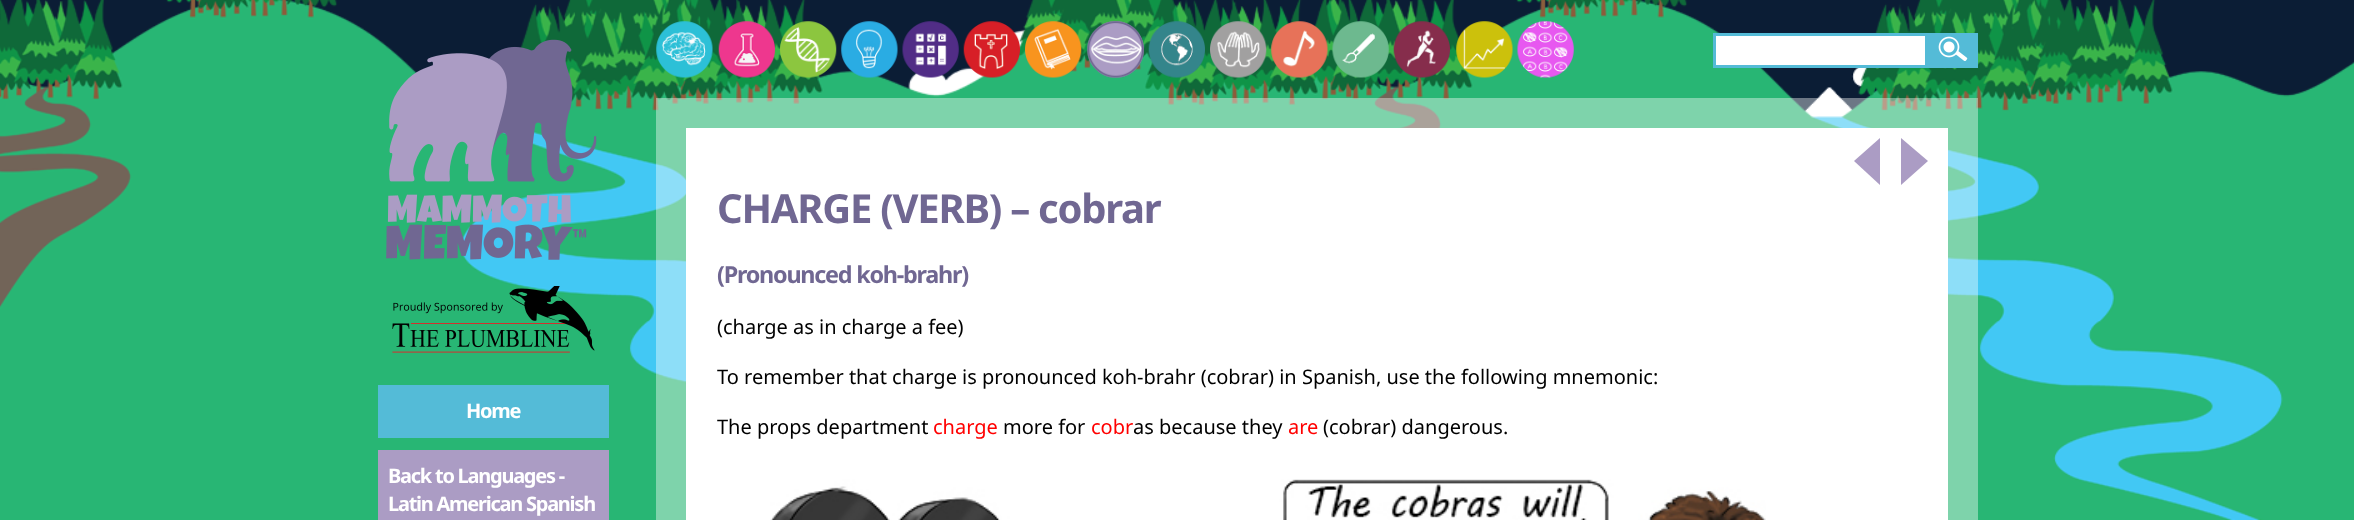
<svg xmlns="http://www.w3.org/2000/svg" xmlns:xlink="http://www.w3.org/1999/xlink" width="2354" height="520" viewBox="0 0 2354 520">
<style>
.cls-1{font:bold 40px Noto Sans;letter-spacing:-1.25px;fill:#706792}
.cls-2{font:bold 23.4px Noto Sans;letter-spacing:-1.25px;fill:#706792}
.cls-3{font:20px Noto Sans;fill:#000000}
.cls-4{font:20px Noto Sans;fill:#ff0000}
.cls-5{font:bold 20px Noto Sans;letter-spacing:-1.25px;fill:#ffffff}
</style>
<rect width="100%" height="100%" fill="#ffffff"/>
<image xlink:href="image0.png" x="0" y="0" width="2354" height="520"/>
<image xlink:href="image1.png" x="656" y="21" width="57" height="57"/>
<image xlink:href="image2.png" x="718" y="21" width="57" height="57"/>
<image xlink:href="image3.png" x="780" y="21" width="57" height="57"/>
<image xlink:href="image4.png" x="841" y="21" width="57" height="57"/>
<image xlink:href="image5.png" x="902" y="21" width="57" height="57"/>
<image xlink:href="image6.png" x="963" y="21" width="57" height="57"/>
<image xlink:href="image7.png" x="1025" y="21" width="57" height="57"/>
<image xlink:href="image8.png" x="1087" y="21" width="57" height="57"/>
<image xlink:href="image9.png" x="1087" y="21" width="57" height="57"/>
<image xlink:href="image10.png" x="1148" y="21" width="57" height="57"/>
<image xlink:href="image11.png" x="1210" y="21" width="57" height="57"/>
<image xlink:href="image12.png" x="1271" y="21" width="57" height="57"/>
<image xlink:href="image13.png" x="1332" y="21" width="57" height="57"/>
<image xlink:href="image14.png" x="1393" y="21" width="57" height="57"/>
<image xlink:href="image15.png" x="1456" y="21" width="57" height="57"/>
<image xlink:href="image16.png" x="1517" y="21" width="57" height="57"/>
<rect fill="#ffffff" stroke="#54bbd7" stroke-width="3" x="1714.5" y="34.5" width="212" height="32"/>
<rect fill="#54bbd7" x="1928" y="33" width="50" height="35"/>
<image xlink:href="image17.png" x="1938" y="36" width="30" height="25"/>
<rect fill="#ffffff" fill-opacity="0.4" x="656" y="98" width="1322" height="422"/>
<rect fill="#ffffff" x="686" y="128" width="1262" height="392"/>
<path fill="#ab9cc4" d="M1880 138V185L1854 161Z"/>
<path fill="#ab9cc4" d="M1901 185V138L1928 161Z"/>
<image xlink:href="image18.png" x="770" y="479" width="996" height="41"/>
<image xlink:href="image19.png" x="386" y="39" width="211" height="221"/>
<image xlink:href="image20.png" x="392" y="286" width="203" height="67"/>
<rect fill="#54bbd7" x="378" y="385" width="231" height="53"/>
<rect fill="#ab9cc4" x="378" y="450" width="231" height="70"/>
<text class="cls-1" x="717" y="223">CHARGE (VERB) – cobrar</text>
<text class="cls-2" x="717" y="283">(Pronounced koh-brahr)</text>
<text class="cls-3" x="717" y="334">(charge as in charge a fee)</text>
<text class="cls-3" x="717" y="384">To remember that charge is pronounced koh-brahr (cobrar) in Spanish, use the following mnemonic:</text>
<text class="cls-3" x="717" y="434">The props department</text>
<text class="cls-4" x="933" y="434">charge</text>
<text class="cls-3" x="1003" y="434">more for</text>
<text class="cls-4" x="1091" y="434">cobr</text>
<text class="cls-3" x="1133" y="434">as because they</text>
<text class="cls-4" x="1288" y="434">are</text>
<text class="cls-3" x="1323" y="434">(cobrar) dangerous.</text>
<text class="cls-5" x="466" y="418">Home</text>
<text class="cls-5"><tspan x="388" y="483">Back to Languages -</tspan><tspan x="388" y="511">Latin American Spanish</tspan></text>
</svg>
